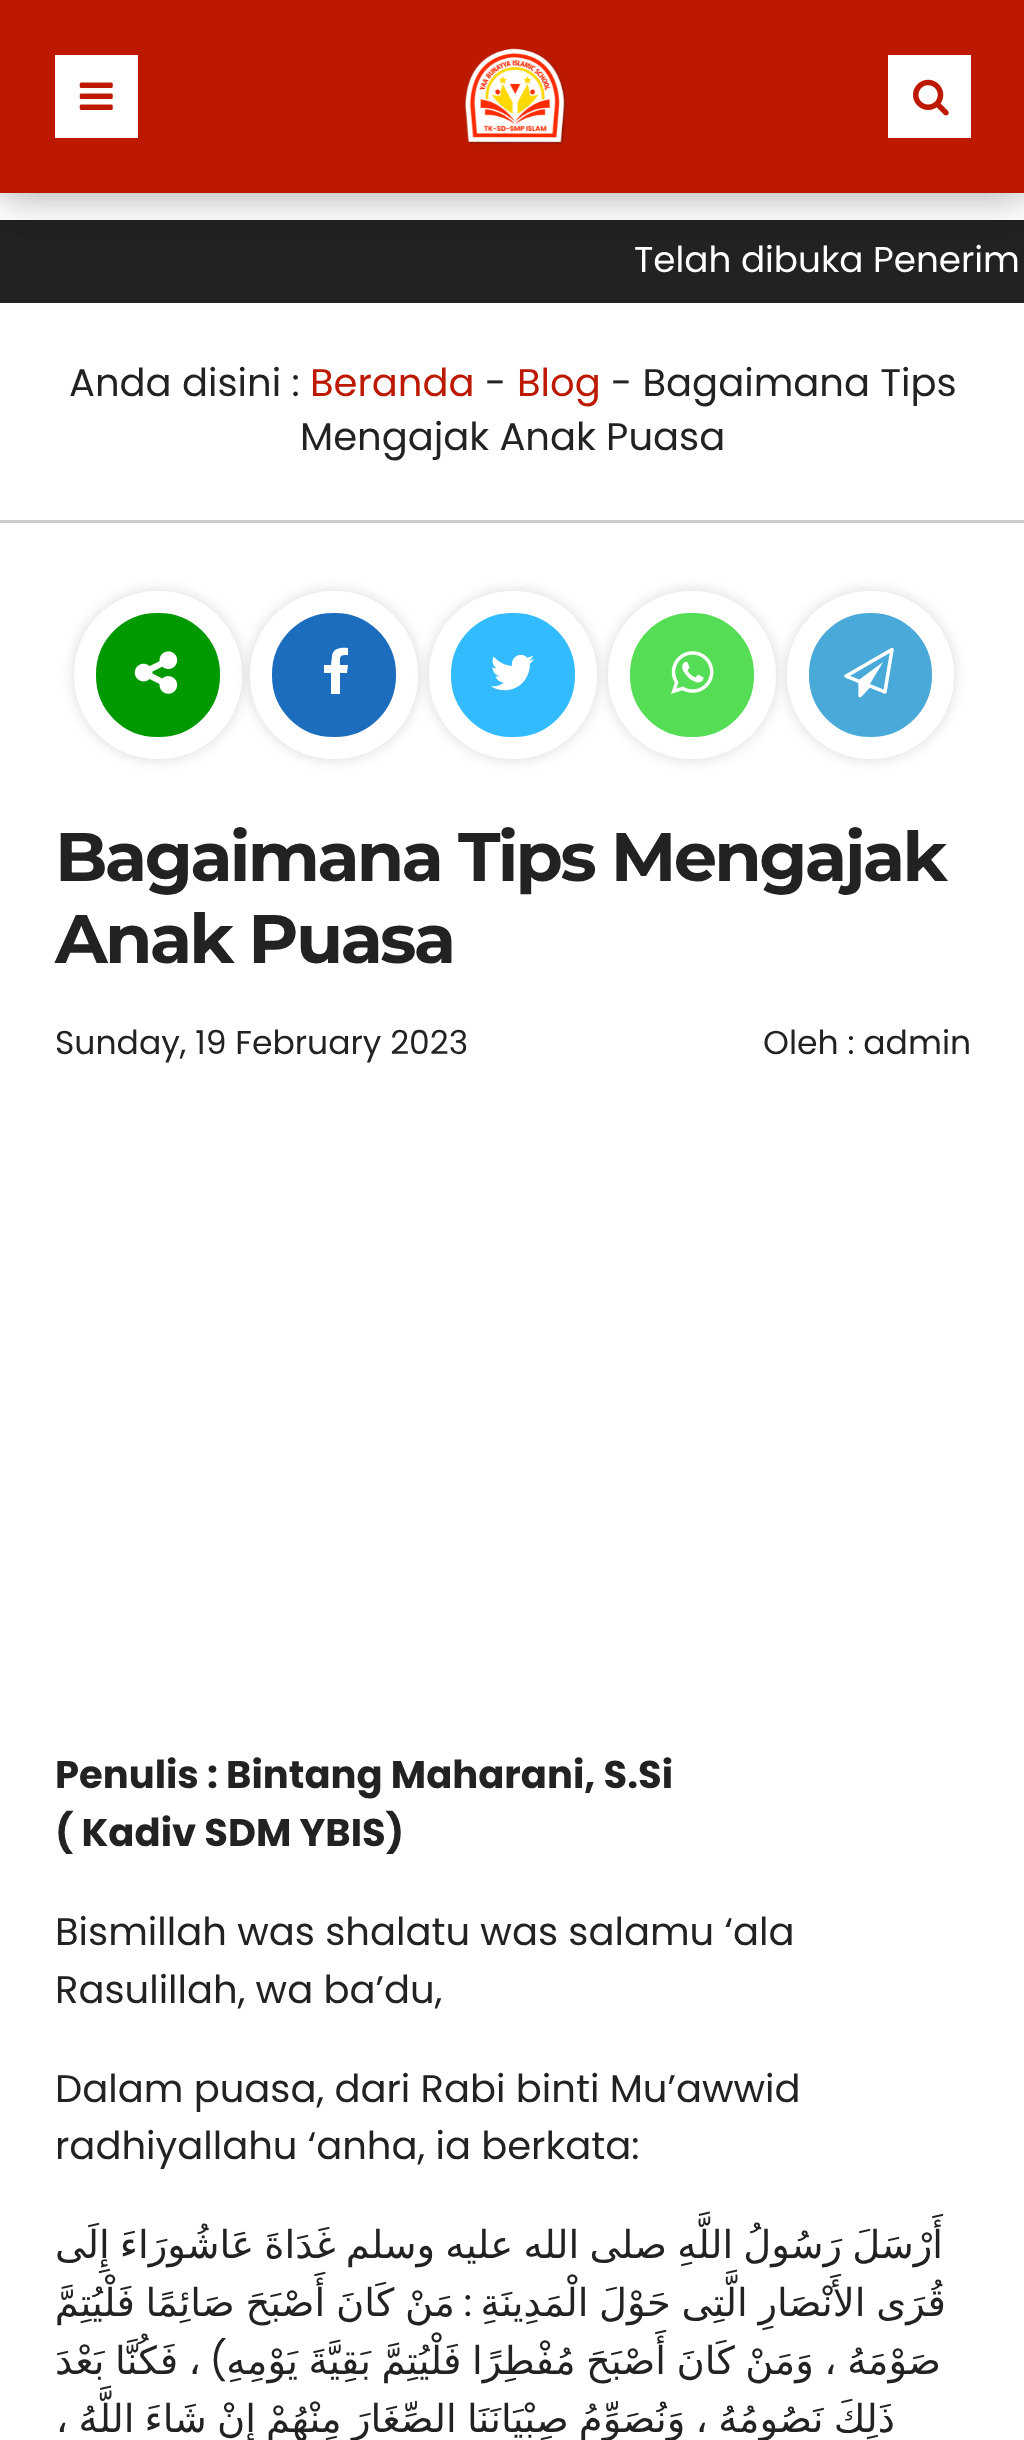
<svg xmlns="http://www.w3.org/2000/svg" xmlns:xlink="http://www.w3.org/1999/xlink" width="1024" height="2440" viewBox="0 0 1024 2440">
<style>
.cls-1{font:35.75px Poppins;fill:#ffffff}
.cls-2{font:38.5px Poppins;fill:#222222}
.cls-3{font:38.5px Poppins;fill:#bc1900}
.cls-4{font:bold 68.75px Montserrat;letter-spacing:-2.75px;fill:#222222}
.cls-5{font:33px Poppins;fill:#222222}
.cls-6{font:bold 38.5px Poppins;fill:#222222}
.cls-7{font:38.5px DejaVu Sans;direction:rtl;fill:#222222}
.cls-8{font:38.5px Poppins;direction:rtl;fill:#222222}
</style>
<rect width="100%" height="100%" fill="#ffffff"/>
<rect fill="#222222" x="0" y="220" width="1024" height="83"/>
<rect fill="#000000" fill-opacity="0.2" filter="blur(20.5px)" x="0" y="0" width="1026" height="193"/>
<rect fill="#000000" fill-opacity="0.2" filter="blur(20.5px)" x="0" y="0" width="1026" height="193"/>
<rect fill="#bc1900" x="0" y="0" width="1024" height="193"/>
<rect fill="#ffffff" x="888" y="55" width="83" height="83"/>
<image xlink:href="image0.png" x="913" y="79" width="36" height="37"/>
<image xlink:href="image1.png" x="464" y="48" width="103" height="97"/>
<rect fill="#ffffff" x="55" y="55" width="83" height="83"/>
<image xlink:href="image2.png" x="79" y="82" width="34" height="28"/>
<rect fill="#cccccc" x="0" y="520" width="1024" height="3"/>
<rect fill="#000000" fill-opacity="0.15" filter="blur(7px)" x="74" y="591" width="168" height="168" rx="83"/>
<rect fill="#009900" stroke="#ffffff" stroke-width="22" x="85" y="602" width="146" height="146" rx="72"/>
<rect fill="#000000" fill-opacity="0.15" filter="blur(7px)" x="250" y="591" width="168" height="168" rx="83"/>
<rect fill="#1c6dbd" stroke="#ffffff" stroke-width="22" x="261" y="602" width="146" height="146" rx="72"/>
<rect fill="#000000" fill-opacity="0.15" filter="blur(7px)" x="429" y="591" width="168" height="168" rx="83"/>
<rect fill="#33bbff" stroke="#ffffff" stroke-width="22" x="440" y="602" width="146" height="146" rx="72"/>
<rect fill="#000000" fill-opacity="0.15" filter="blur(7px)" x="608" y="591" width="168" height="168" rx="83"/>
<rect fill="#55dd55" stroke="#ffffff" stroke-width="22" x="619" y="602" width="146" height="146" rx="72"/>
<rect fill="#000000" fill-opacity="0.15" filter="blur(7px)" x="787" y="591" width="167" height="168" rx="83"/>
<rect fill="#49aad9" stroke="#ffffff" stroke-width="22" x="798" y="602" width="145" height="146" rx="72"/>
<image xlink:href="image3.png" x="844" y="647" width="50" height="51"/>
<image xlink:href="image4.png" x="671" y="651" width="43" height="43"/>
<image xlink:href="image5.png" x="491" y="654" width="44" height="37"/>
<path fill="#ffffff" d="M348 648C341 647 333 648 332 656L331 665H324V673H331V694H340V673H347L348 665H340C340 656 339 655 348 655Z"/>
<image xlink:href="image6.png" x="134" y="651" width="44" height="43"/>
<text class="cls-1" x="634" y="272">Telah dibuka Penerim</text>
<text class="cls-2" x="611" y="396">- Bagaimana Tips</text>
<text class="cls-3" x="517" y="396">Blog</text>
<text class="cls-2" x="485" y="396">-</text>
<text class="cls-3" x="310" y="396">Beranda</text>
<text class="cls-2" x="69" y="396">Anda disini :</text>
<text class="cls-2" x="300" y="450">Mengajak Anak Puasa</text>
<text class="cls-4"><tspan x="55" y="881">Bagaimana Tips Mengajak</tspan><tspan x="55" y="963">Anak Puasa</tspan></text>
<text class="cls-5" x="763" y="1054">Oleh : admin</text>
<text class="cls-5" x="55" y="1054">Sunday, 19 February 2023</text>
<text class="cls-6"><tspan x="55" y="1788">Penulis : Bintang Maharani, S.Si</tspan><tspan x="55" y="1846">( Kadiv SDM YBIS)</tspan></text>
<text class="cls-2"><tspan x="55" y="1945">Bismillah was shalatu was salamu ‘ala</tspan><tspan x="55" y="2003">Rasulillah, wa ba’du,</tspan></text>
<text class="cls-2"><tspan x="55" y="2102">Dalam puasa, dari Rabi binti Mu’awwid</tspan><tspan x="55" y="2159">radhiyallahu ‘anha, ia berkata:</tspan></text>
<text class="cls-7" x="943" y="2258" word-spacing="-2">أَرْسَلَ رَسُولُ اللَّهِ صلى الله عليه وسلم غَدَاةَ عَاشُورَاءَ إِلَى</text>
<text class="cls-7" x="946" y="2316" word-spacing="-1.5">قُرَى الأَنْصَارِ الَّتِى حَوْلَ الْمَدِينَةِ</text>
<text class="cls-8" x="472" y="2316">:</text>
<text class="cls-7" x="455" y="2316" word-spacing="-1.5">مَنْ كَانَ أَصْبَحَ صَائِمًا فَلْيُتِمَّ</text>
<text class="cls-7" x="941" y="2374" word-spacing="-1.75">صَوْمَهُ ، وَمَنْ كَانَ أَصْبَحَ مُفْطِرًا فَلْيُتِمَّ بَقِيَّةَ يَوْمِهِ</text>
<text class="cls-8" x="227" y="2374">)</text>
<text class="cls-7" x="201" y="2374" word-spacing="-1.75">، فَكُنَّا بَعْدَ</text>
<text class="cls-7" x="895" y="2432" word-spacing="-2">ذَلِكَ نَصُومُهُ ، وَنُصَوِّمُ صِبْيَانَنَا الصِّغَارَ مِنْهُمْ إِنْ شَاءَ اللَّهُ ،</text>
</svg>
